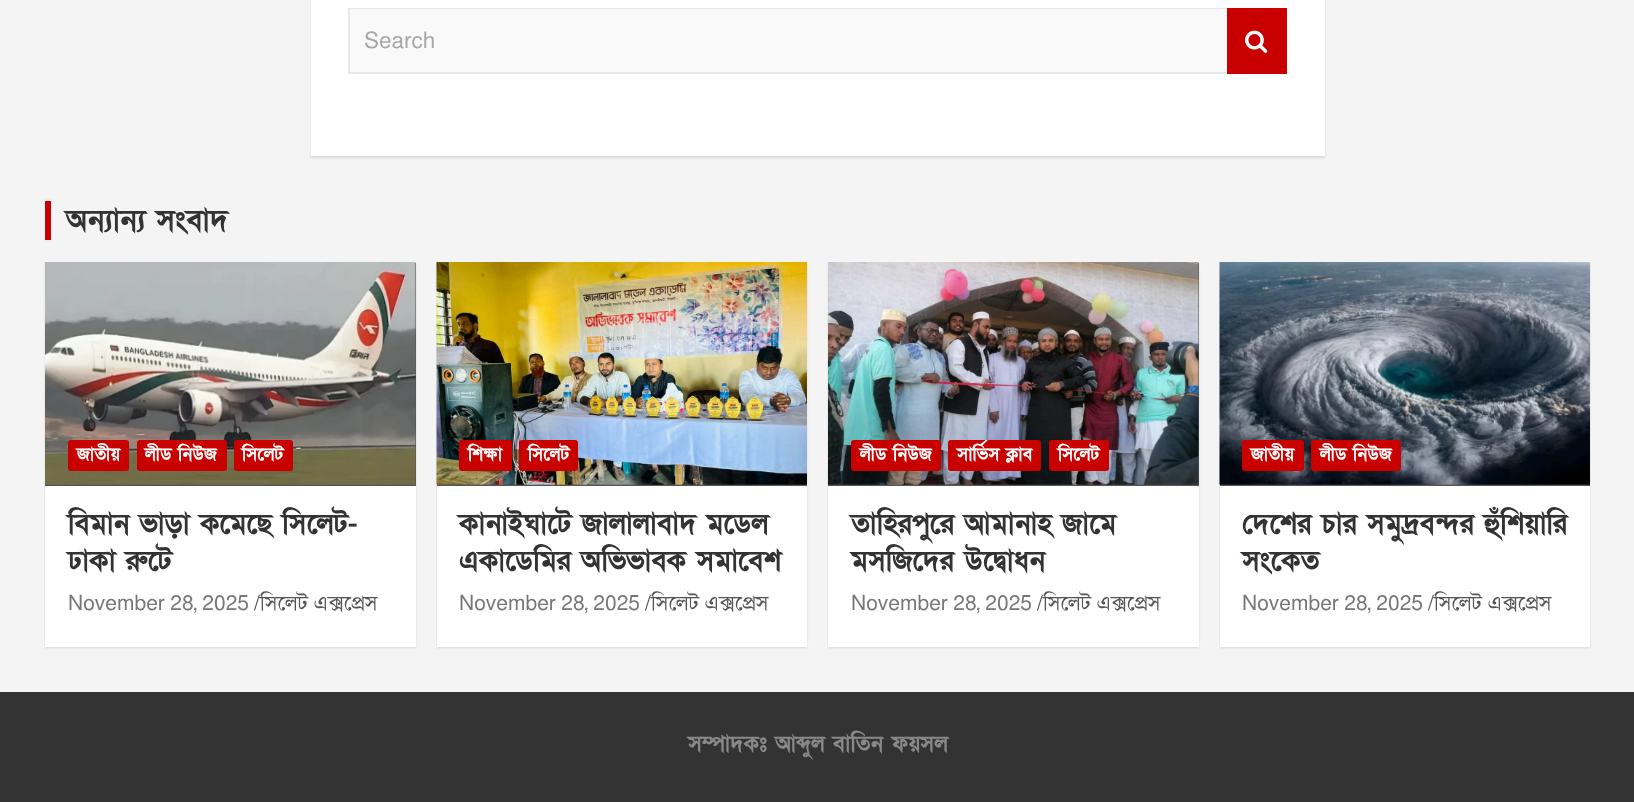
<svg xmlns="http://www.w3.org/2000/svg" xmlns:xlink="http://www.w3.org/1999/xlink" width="1634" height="802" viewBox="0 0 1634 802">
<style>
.cls-1{font:22.5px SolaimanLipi;fill:#a7a7a7}
.cls-2{font:bold 30px SolaimanLipi;fill:#333333}
.cls-3{font:bold 18px SolaimanLipi;fill:#ffffff}
.cls-4{font:bold 28.5px SolaimanLipi;fill:#333333}
.cls-5{font:21px SolaimanLipi;fill:#777777}
.cls-6{font:21px SolaimanLipi;fill:#555555}
.cls-7{font:bold 22.5px SolaimanLipi;fill:#888888}
</style>
<rect width="100%" height="100%" fill="#f4f4f4"/>
<rect fill="#000000" fill-opacity="0.1" filter="blur(1px)" x="311" y="-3" width="1014" height="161"/>
<rect fill="#ffffff" x="311" y="0" width="1014" height="156"/>
<rect fill="#f9f9f9" x="350" y="9" width="877" height="63"/>
<path fill="#e8e8e8" d="M348 8H1227V9H350Z"/>
<path fill="#e8e8e8" d="M1227 74H348L350 72H1227Z"/>
<path fill="#000000" fill-opacity="0.09" d="M348 74V8L350 9V72Z"/>
<rect fill="#c80000" x="1227" y="8" width="60" height="66"/>
<image xlink:href="image0.png" x="1245" y="30" width="23" height="23"/>
<rect fill="#c80000" x="45" y="201" width="6" height="39"/>
<rect fill="#000000" fill-opacity="0.1" filter="blur(1px)" x="45" y="264" width="371" height="384"/>
<rect fill="#ffffff" x="45" y="486" width="371" height="161"/>
<rect fill="#555555" x="45" y="263" width="371" height="223"/>
<image xlink:href="image1.png" x="45" y="262" width="371" height="223"/>
<rect fill="#c80000" x="68" y="440" width="61" height="31" rx="3"/>
<rect fill="#c80000" x="137" y="440" width="90" height="31" rx="3"/>
<rect fill="#c80000" x="234" y="440" width="59" height="31" rx="3"/>
<rect fill="#000000" fill-opacity="0.1" filter="blur(1px)" x="437" y="264" width="370" height="384"/>
<rect fill="#ffffff" x="437" y="486" width="370" height="161"/>
<rect fill="#555555" x="437" y="484" width="370" height="2"/>
<image xlink:href="image2.png" x="436" y="262" width="371" height="223"/>
<rect fill="#c80000" x="459" y="440" width="53" height="31" rx="3"/>
<rect fill="#c80000" x="519" y="440" width="59" height="31" rx="3"/>
<rect fill="#000000" fill-opacity="0.1" filter="blur(1px)" x="828" y="264" width="371" height="384"/>
<rect fill="#ffffff" x="828" y="486" width="371" height="161"/>
<rect fill="#555555" x="828" y="263" width="371" height="223"/>
<image xlink:href="image3.png" x="828" y="262" width="371" height="223"/>
<rect fill="#c80000" x="851" y="440" width="90" height="31" rx="3"/>
<rect fill="#c80000" x="948" y="440" width="93" height="31" rx="3"/>
<rect fill="#c80000" x="1049" y="440" width="60" height="31" rx="3"/>
<rect fill="#000000" fill-opacity="0.1" filter="blur(1px)" x="1220" y="264" width="370" height="384"/>
<rect fill="#ffffff" x="1220" y="486" width="370" height="161"/>
<rect fill="#555555" x="1220" y="484" width="370" height="2"/>
<image xlink:href="image4.png" x="1219" y="262" width="371" height="223"/>
<rect fill="#c80000" x="1242" y="440" width="62" height="31" rx="3"/>
<rect fill="#c80000" x="1311" y="440" width="90" height="31" rx="3"/>
<rect fill="#333333" x="0" y="692" width="1634" height="110"/>
<text class="cls-1" x="364" y="48">Search</text>
<text class="cls-2" x="66" y="230">অন্যান্য সংবাদ</text>
<text class="cls-3" x="77" y="460">জাতীয়</text>
<text class="cls-3" x="145" y="460">লীড নিউজ</text>
<text class="cls-3" x="242" y="460">সিলেট</text>
<text class="cls-4"><tspan x="68" y="533">বিমান ভাড়া কমেছে সিলেট-</tspan><tspan x="68" y="570">ঢাকা রুটে</tspan></text>
<text class="cls-5" x="68" y="610">November 28, 2025</text>
<text class="cls-6" x="254" y="610">/সিলেট এক্সপ্রেস</text>
<text class="cls-3" x="468" y="460">শিক্ষা</text>
<text class="cls-3" x="528" y="460">সিলেট</text>
<text class="cls-4"><tspan x="459" y="533">কানাইঘাটে জালালাবাদ মডেল</tspan><tspan x="459" y="570">একাডেমির অভিভাবক সমাবেশ</tspan></text>
<text class="cls-5" x="459" y="610">November 28, 2025</text>
<text class="cls-6" x="645" y="610">/সিলেট এক্সপ্রেস</text>
<text class="cls-3" x="860" y="460">লীড নিউজ</text>
<text class="cls-3" x="957" y="460">সার্ভিস ক্লাব</text>
<text class="cls-3" x="1058" y="460">সিলেট</text>
<text class="cls-4"><tspan x="851" y="533">তাহিরপুরে আমানাহ জামে</tspan><tspan x="851" y="570">মসজিদের উদ্বোধন</tspan></text>
<text class="cls-5" x="851" y="610">November 28, 2025</text>
<text class="cls-6" x="1037" y="610">/সিলেট এক্সপ্রেস</text>
<text class="cls-3" x="1251" y="460">জাতীয়</text>
<text class="cls-3" x="1320" y="460">লীড নিউজ</text>
<text class="cls-4"><tspan x="1242" y="533">দেশের চার সমুদ্রবন্দর হুঁশিয়ারি</tspan><tspan x="1242" y="570">সংকেত</tspan></text>
<text class="cls-5" x="1242" y="610">November 28, 2025</text>
<text class="cls-6" x="1428" y="610">/সিলেট এক্সপ্রেস</text>
<text class="cls-7" x="688" y="751">সম্পাদকঃ আব্দুল বাতিন ফয়সল</text>
</svg>
